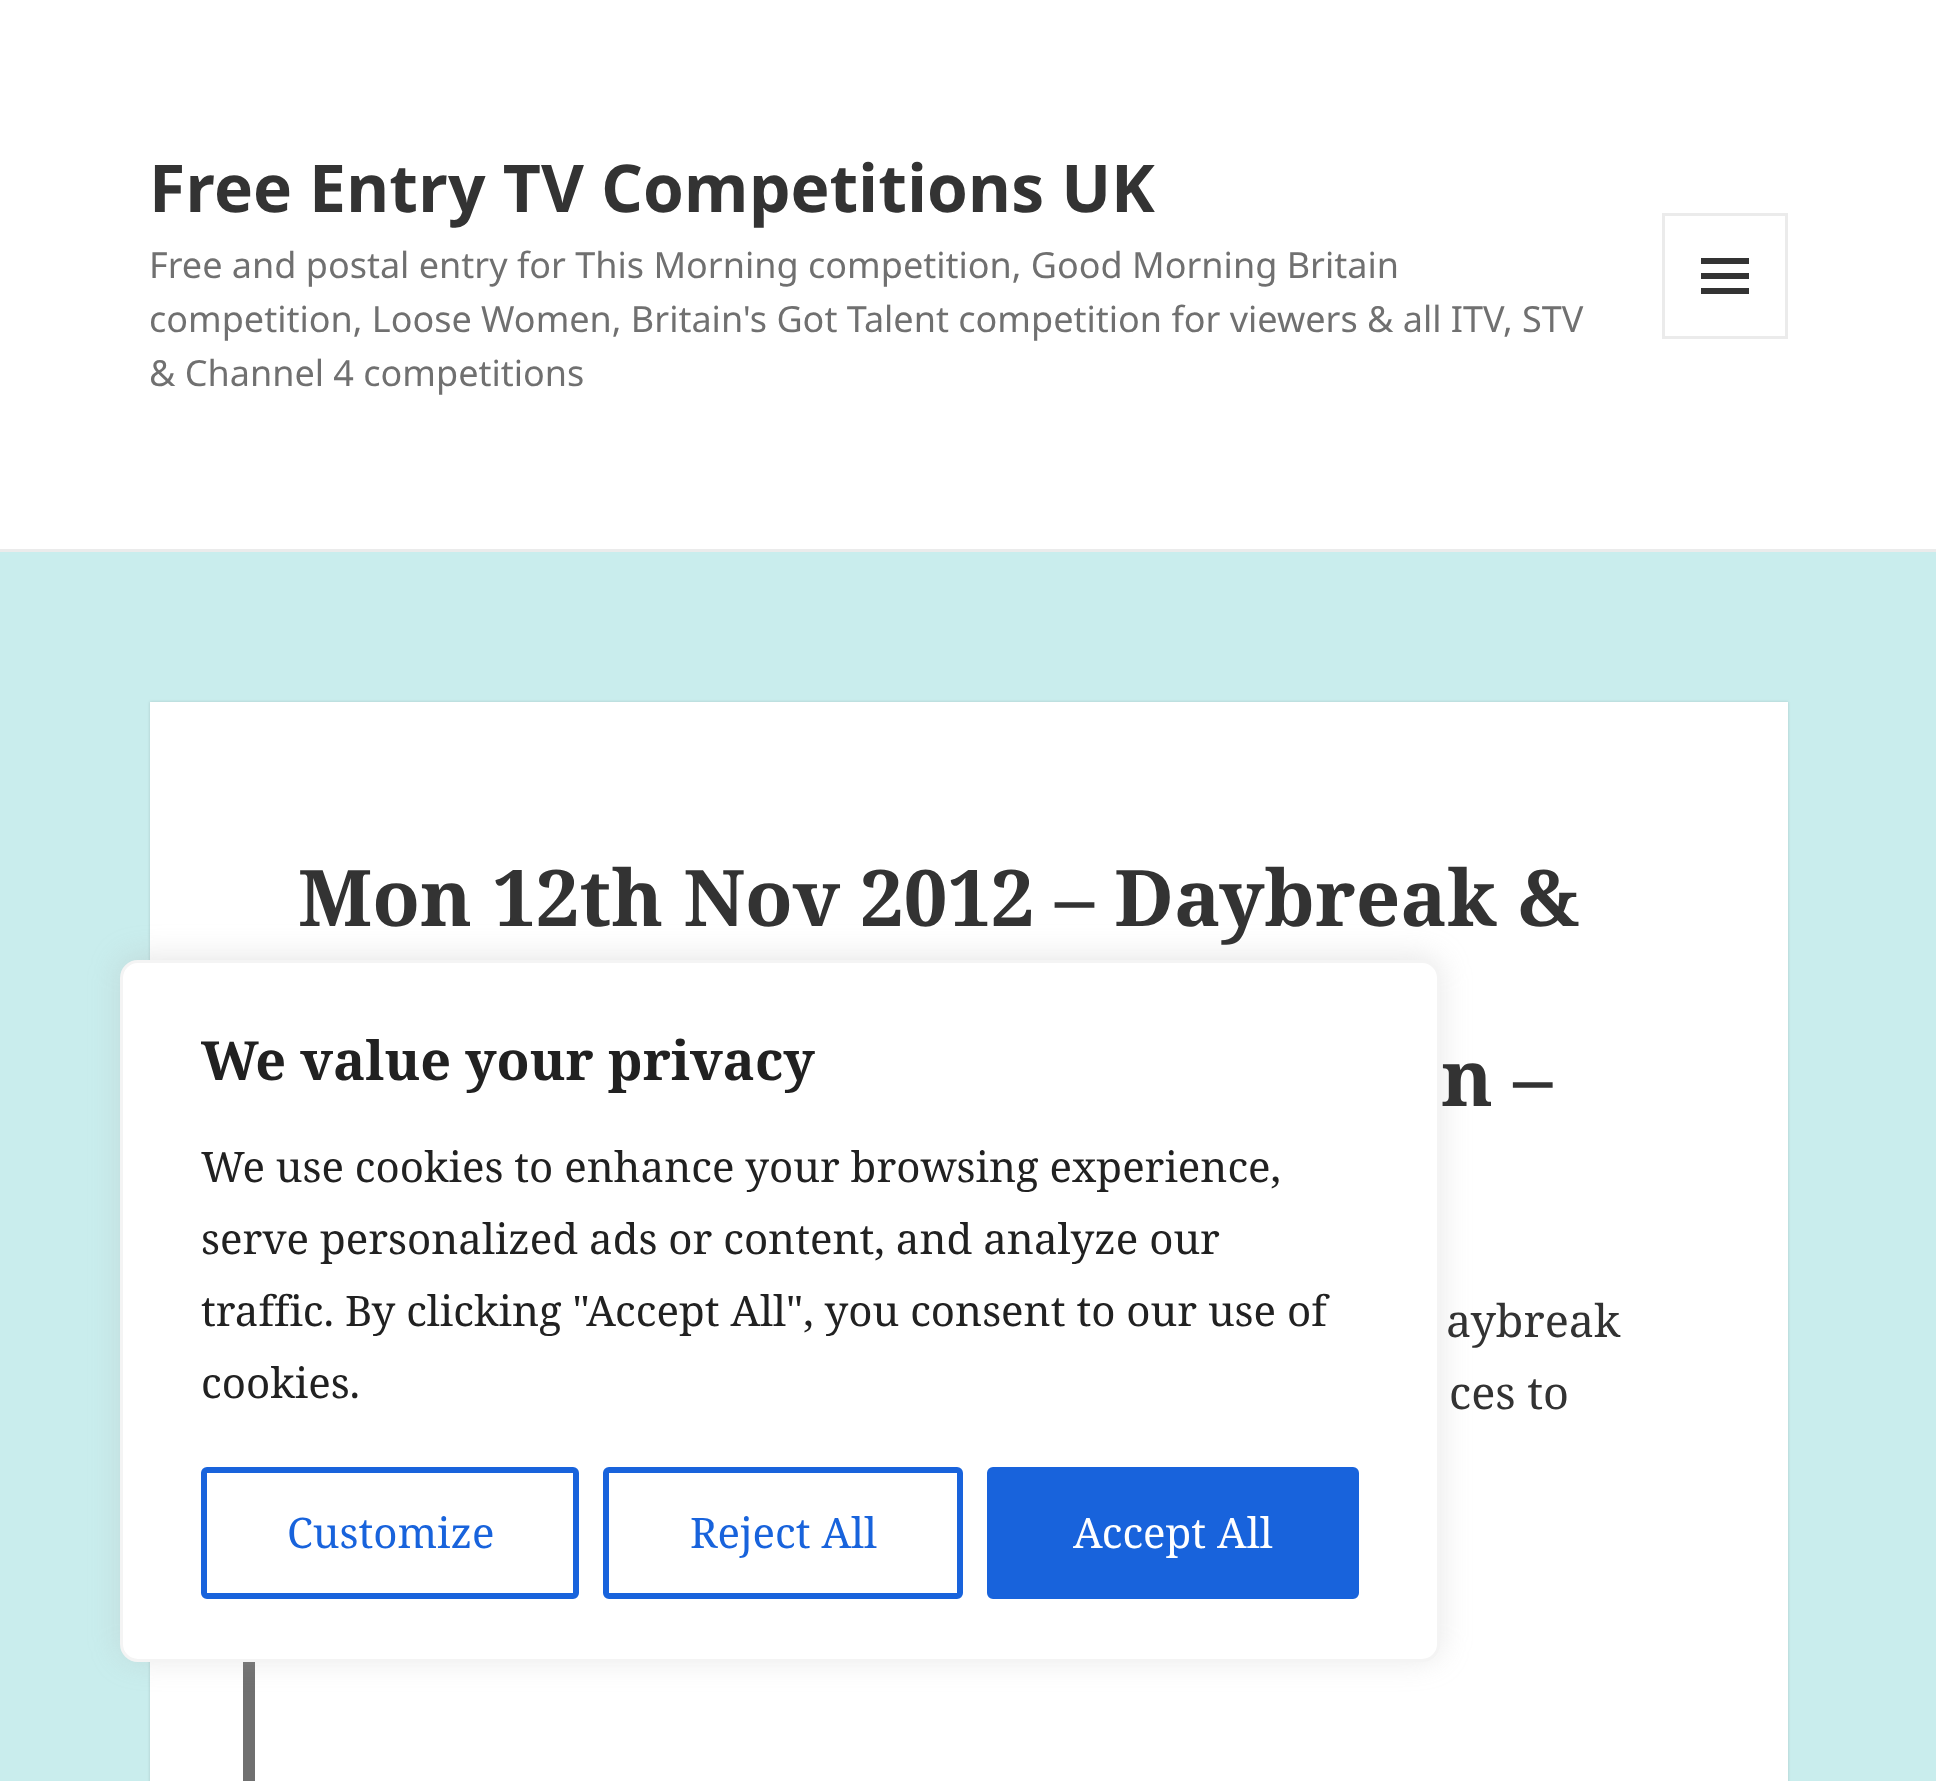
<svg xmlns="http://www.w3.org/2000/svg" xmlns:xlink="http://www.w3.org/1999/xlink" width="1936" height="1781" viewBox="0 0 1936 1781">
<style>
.cls-1{font:bold 66px Noto Sans;fill:#333333}
.cls-2{font:36px Noto Sans;fill:#707070}
.cls-3{font:bold 78px Noto Serif;fill:#333333}
.cls-4{font:45px Noto Serif;fill:#333333}
.cls-5{font:bold 54px Noto Serif;fill:#212121}
.cls-6{font:42px Noto Serif;fill:#212121}
.cls-7{font:42px Noto Serif;fill:#1863dc}
.cls-8{font:42px Noto Serif;fill:#ffffff}
</style>
<rect width="100%" height="100%" fill="#c9eded"/>
<rect fill="#ffffff" x="0" y="0" width="1936" height="549"/>
<rect fill="#ebebeb" x="0" y="549" width="1936" height="3"/>
<rect fill="none" stroke="#ebebeb" stroke-width="3" x="1663.5" y="214.5" width="123" height="123"/>
<path fill="#333333" d="M1701 294V288H1749V294ZM1701 258H1749V264H1701ZM1701 279V273H1749V279Z"/>
<rect fill="#000000" fill-opacity="0.15" filter="blur(1.5px)" x="150" y="702" width="1638" height="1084"/>
<rect fill="#ffffff" x="150" y="702" width="1638" height="1079"/>
<rect fill="#707070" x="243" y="1662" width="12" height="119"/>
<rect fill="#acabab" fill-opacity="0.3" filter="blur(15px)" x="120" y="957" width="1320" height="702" rx="18"/>
<rect fill="#ffffff" stroke="#f4f4f4" stroke-width="3" x="121.5" y="961.5" width="1317" height="699" rx="16.5"/>
<rect fill="none" stroke="#1863dc" stroke-width="6" x="204" y="1470" width="372" height="126" rx="3"/>
<rect fill="none" stroke="#1863dc" stroke-width="6" x="606" y="1470" width="354" height="126" rx="3"/>
<rect fill="#1863dc" stroke="#1863dc" stroke-width="6" x="990" y="1470" width="366" height="126" rx="3"/>
<text class="cls-1" x="149" y="212">Free Entry TV Competitions UK</text>
<text class="cls-2"><tspan x="149" y="278">Free and postal entry for This Morning competition, Good Morning Britain</tspan><tspan x="149" y="332">competition, Loose Women, Britain's Got Talent competition for viewers &amp; all ITV, STV</tspan><tspan x="149" y="386">&amp; Channel 4 competitions</tspan></text>
<text class="cls-3" x="298" y="926">Mon 12th Nov 2012 – Daybreak &amp;</text>
<text class="cls-3" x="1441" y="1106">n –</text>
<text class="cls-4" x="1446" y="1337">aybreak</text>
<text class="cls-4" x="1449" y="1409">ces to</text>
<text class="cls-5" x="201" y="1080">We value your privacy</text>
<text class="cls-6"><tspan x="201" y="1182">We use cookies to enhance your browsing experience,</tspan><tspan x="201" y="1254">serve personalized ads or content, and analyze our</tspan><tspan x="201" y="1326">traffic. By clicking "Accept All", you consent to our use of</tspan><tspan x="201" y="1398">cookies.</tspan></text>
<text class="cls-7" x="287" y="1548">Customize</text>
<text class="cls-7" x="690" y="1548">Reject All</text>
<text class="cls-8" x="1073" y="1548">Accept All</text>
</svg>
